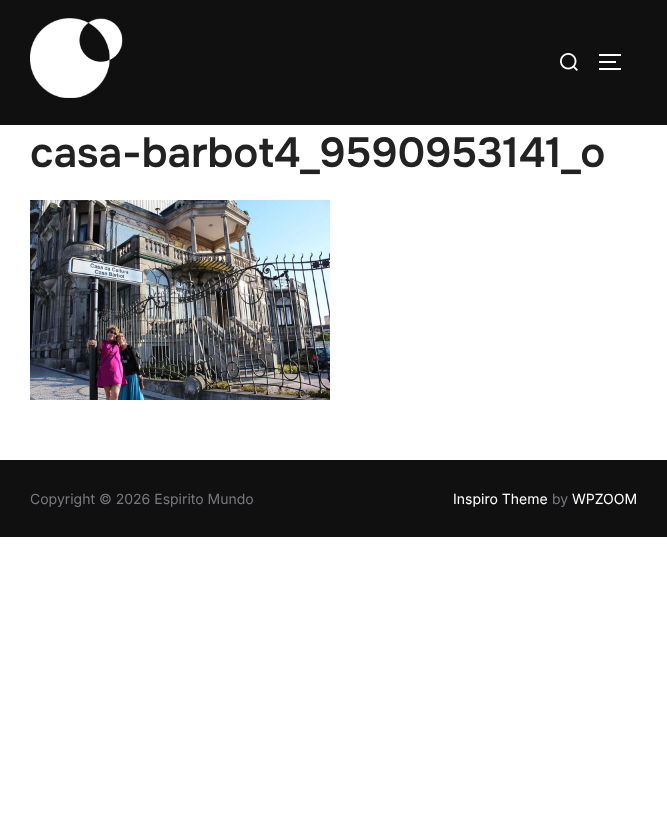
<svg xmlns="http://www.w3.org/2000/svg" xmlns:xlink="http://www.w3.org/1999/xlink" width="667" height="817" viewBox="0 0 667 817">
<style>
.cls-1{font:600 42px Onest;fill:#222222}
.cls-2{font:14px Inter;fill:#78787f}
.cls-3{font:14px Inter;fill:#ffffff}
</style>
<rect width="100%" height="100%" fill="#ffffff"/>
<rect fill="#101010" x="0" y="0" width="667" height="125"/>
<image xlink:href="image0.png" x="30" y="18" width="93" height="80"/>
<image xlink:href="image1.png" x="560" y="53" width="18" height="18"/>
<rect fill="#ffffff" x="599" y="54" width="22" height="2"/>
<rect fill="#ffffff" x="599" y="61" width="17" height="2"/>
<rect fill="#ffffff" x="599" y="68" width="22" height="2"/>
<image xlink:href="image2.png" x="30" y="200" width="300" height="200"/>
<rect fill="#101010" x="0" y="460" width="667" height="77"/>
<text class="cls-1" x="30" y="167">casa-barbot4_9590953141_o</text>
<text class="cls-2" x="30" y="504">Copyright © 2026 Espirito Mundo</text>
<text class="cls-3" x="453" y="504">Inspiro Theme</text>
<text class="cls-2" x="552" y="504">by</text>
<text class="cls-3" x="572" y="504">WPZOOM</text>
</svg>
